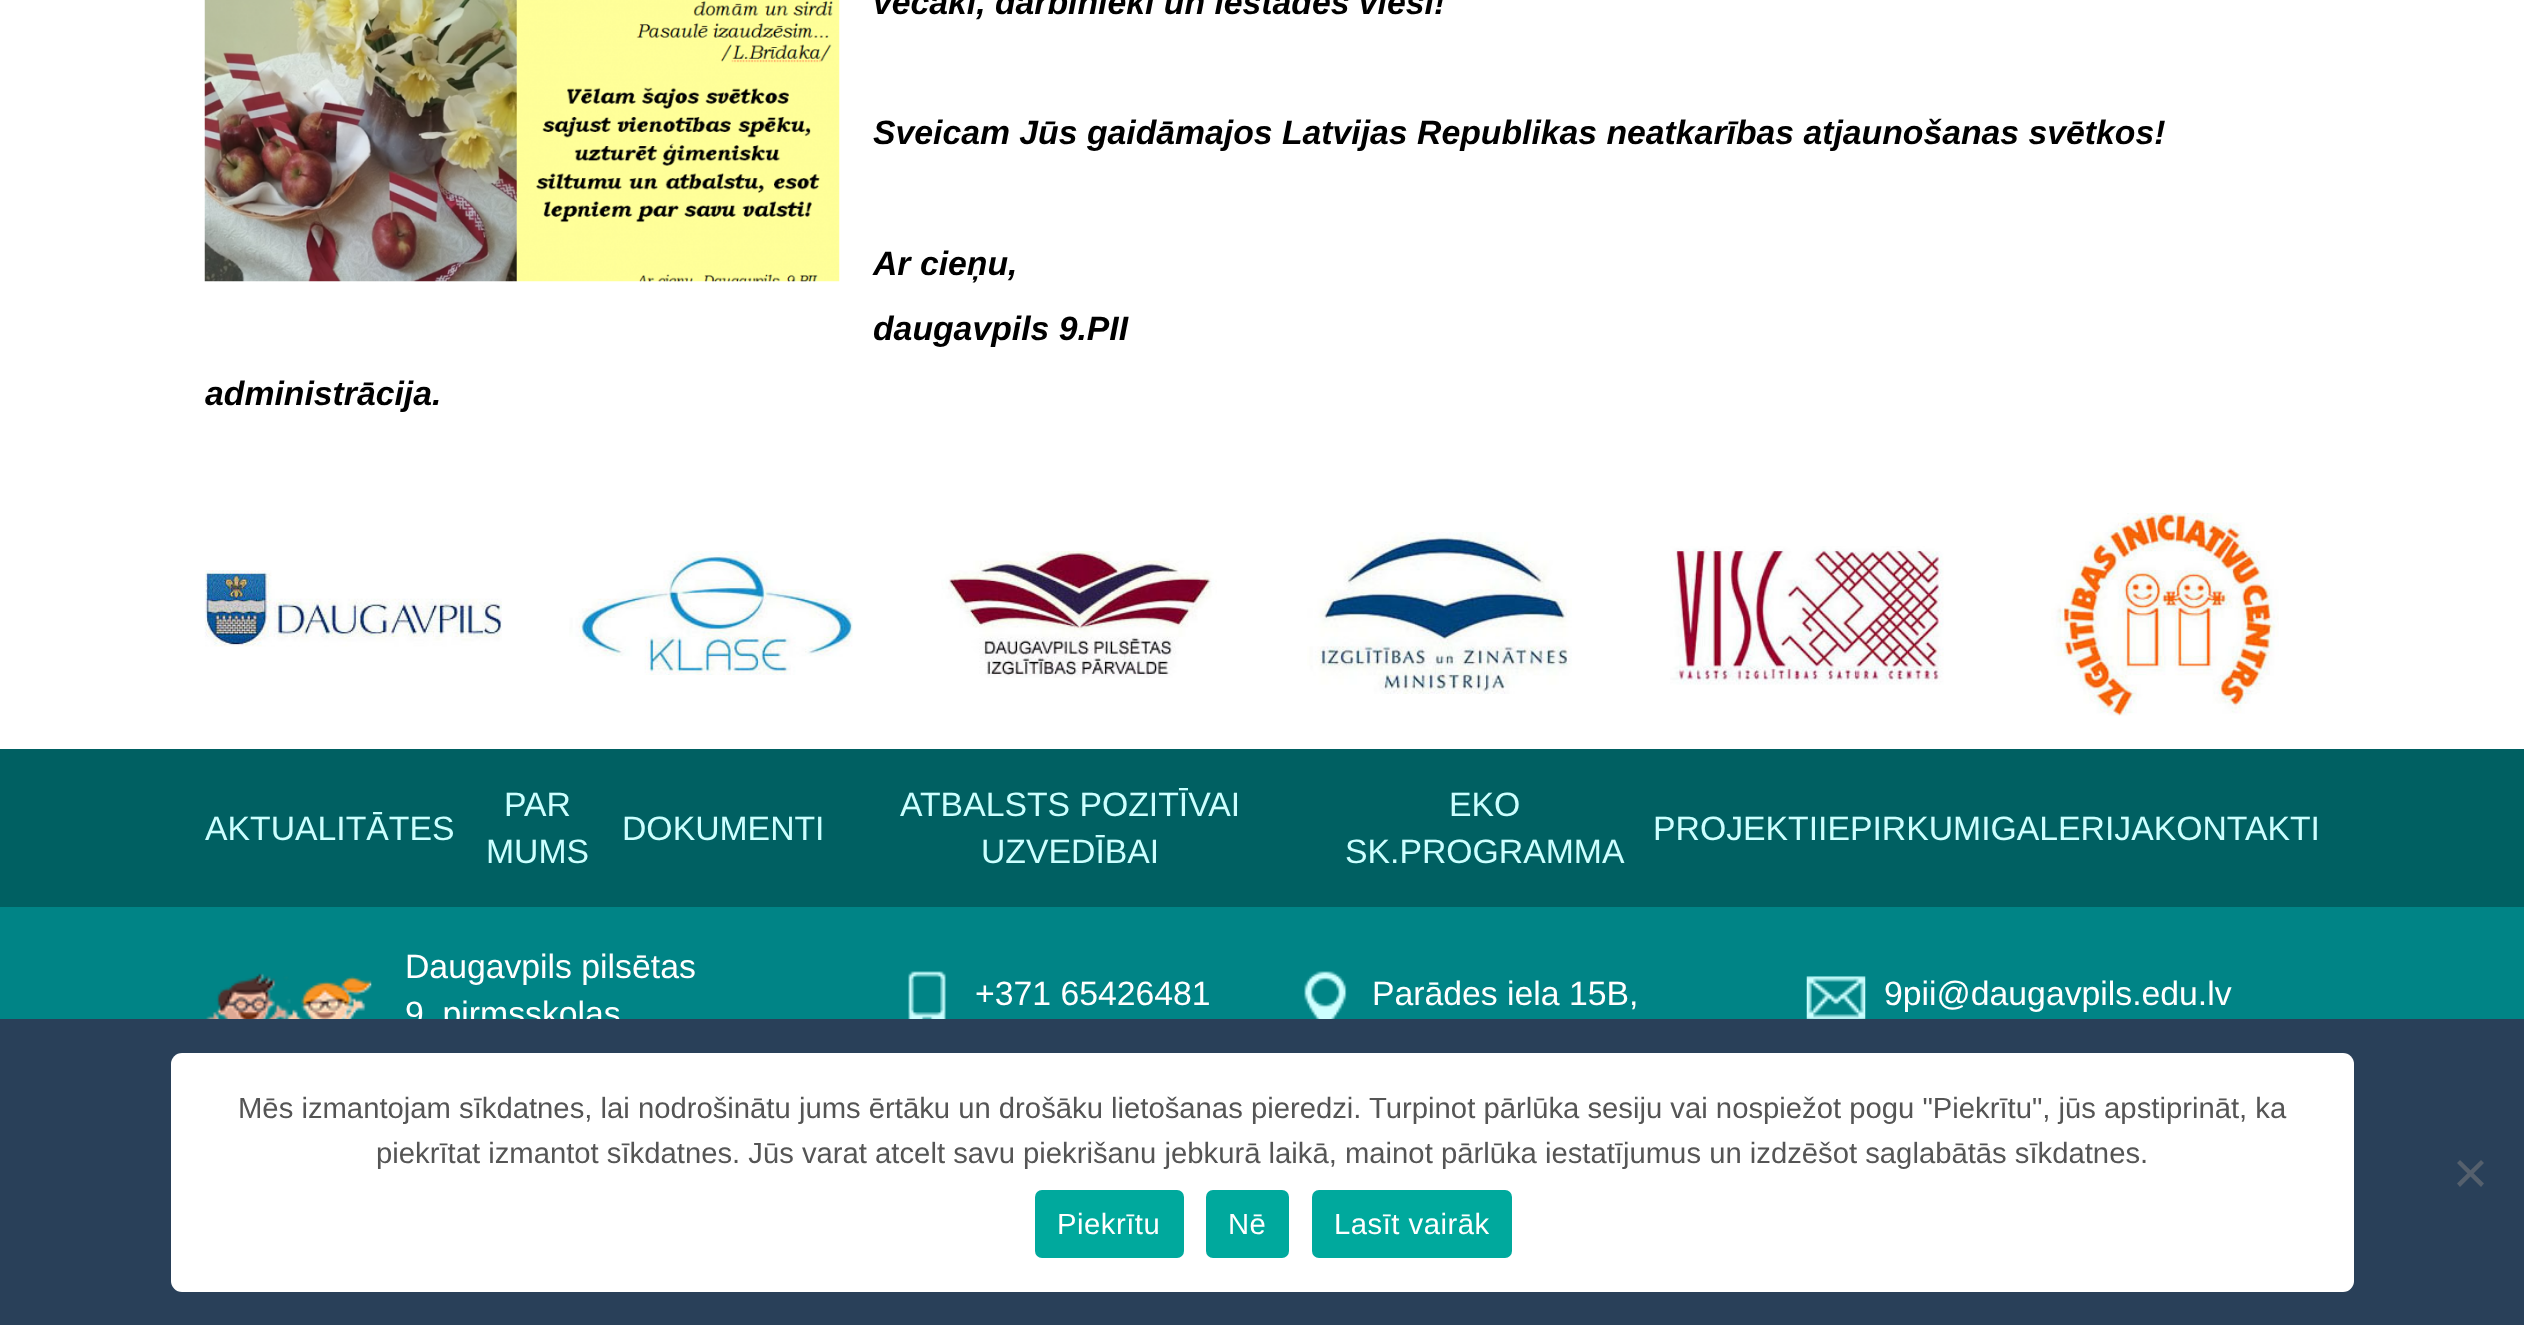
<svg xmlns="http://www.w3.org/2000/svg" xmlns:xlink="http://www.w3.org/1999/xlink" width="2524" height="1325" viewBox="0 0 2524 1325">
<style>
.cls-1{font:italic bold 33.75px Liberation Sans;fill:#000000}
.cls-2{font:33.75px Liberation Sans;fill:#ccffff}
.cls-3{font:33.75px Liberation Sans;fill:#ffffff}
.cls-4{font:29.25px Liberation Sans;fill:#555555}
.cls-5{font:29.25px Liberation Sans;letter-spacing:0.5px;fill:#ffffff}
</style>
<rect width="100%" height="100%" fill="#ffffff"/>
<image xlink:href="image0.png" x="204" y="0" width="636" height="282"/>
<image xlink:href="image1.png" x="204" y="570" width="298" height="77"/>
<image xlink:href="image2.png" x="569" y="551" width="284" height="124"/>
<image xlink:href="image3.png" x="941" y="551" width="276" height="127"/>
<image xlink:href="image4.png" x="1307" y="532" width="265" height="162"/>
<image xlink:href="image5.png" x="1670" y="546" width="274" height="139"/>
<image xlink:href="image6.png" x="2051" y="513" width="228" height="203"/>
<rect fill="#006062" x="0" y="749" width="2524" height="158"/>
<rect fill="#008486" x="0" y="907" width="2524" height="112"/>
<image xlink:href="image7.png" x="206" y="973" width="166" height="46"/>
<image xlink:href="image8.png" x="908" y="971" width="38" height="48"/>
<image xlink:href="image9.png" x="1304" y="971" width="43" height="48"/>
<image xlink:href="image10.png" x="1806" y="976" width="60" height="43"/>
<text class="cls-1" x="873" y="14">vecāki, darbinieki un iestādes viesi!</text>
<text class="cls-1" x="873" y="144">Sveicam Jūs gaidāmajos Latvijas Republikas neatkarības atjaunošanas svētkos!</text>
<text class="cls-1"><tspan x="873" y="275">Ar cieņu,</tspan><tspan x="873" y="340">daugavpils 9.PII</tspan></text>
<text class="cls-1" x="205" y="405">administrācija.</text>
<text class="cls-2" x="205" y="840">AKTUALITĀTES</text>
<text class="cls-2" x="504" y="816">PAR</text>
<text class="cls-2" x="486" y="863">MUMS</text>
<text class="cls-2" x="622" y="840">DOKUMENTI</text>
<text class="cls-2" x="900" y="816">ATBALSTS POZITĪVAI</text>
<text class="cls-2" x="981" y="863">UZVEDĪBAI</text>
<text class="cls-2" x="1449" y="816">EKO</text>
<text class="cls-2" x="1345" y="863">SK.PROGRAMMA</text>
<text class="cls-2" x="1653" y="840">PROJEKTIIEPIRKUMIGALERIJAKONTAKTI</text>
<text class="cls-3"><tspan x="405" y="978">Daugavpils pilsētas</tspan><tspan x="405" y="1025">9. pirmsskolas</tspan></text>
<text class="cls-3" x="975" y="1005">+371 65426481</text>
<text class="cls-3" x="1372" y="1005">Parādes iela 15B,</text>
<text class="cls-3" x="1884" y="1005">9pii@daugavpils.edu.lv</text>
<rect fill="#294059" x="0" y="1019" width="2524" height="306"/>
<rect fill="#ffffff" x="171" y="1053" width="2183" height="239" rx="11"/>
<text class="cls-4" x="238" y="1118">Mēs izmantojam sīkdatnes, lai nodrošinātu jums ērtāku un drošāku lietošanas pieredzi. Turpinot pārlūka sesiju vai nospiežot pogu "Piekrītu", jūs apstiprināt, ka</text>
<text class="cls-4" x="376" y="1163">piekrītat izmantot sīkdatnes. Jūs varat atcelt savu piekrišanu jebkurā laikā, mainot pārlūka iestatījumus un izdzēšot saglabātās sīkdatnes.</text>
<path fill="#55606d" d="M2481 1160L2484 1163L2460 1187L2457 1183.5Z"/>
<path fill="#55606d" d="M2457 1163L2460 1160L2484 1183.5L2481 1187Z"/>
<rect fill="#00a99d" x="1035" y="1190" width="149" height="68" rx="7"/>
<text class="cls-5" x="1057" y="1234">Piekrītu</text>
<rect fill="#00a99d" x="1206" y="1190" width="83" height="68" rx="7"/>
<text class="cls-5" x="1228" y="1234">Nē</text>
<rect fill="#00a99d" x="1312" y="1190" width="200" height="68" rx="7"/>
<text class="cls-5" x="1334" y="1234">Lasīt vairāk</text>
</svg>
